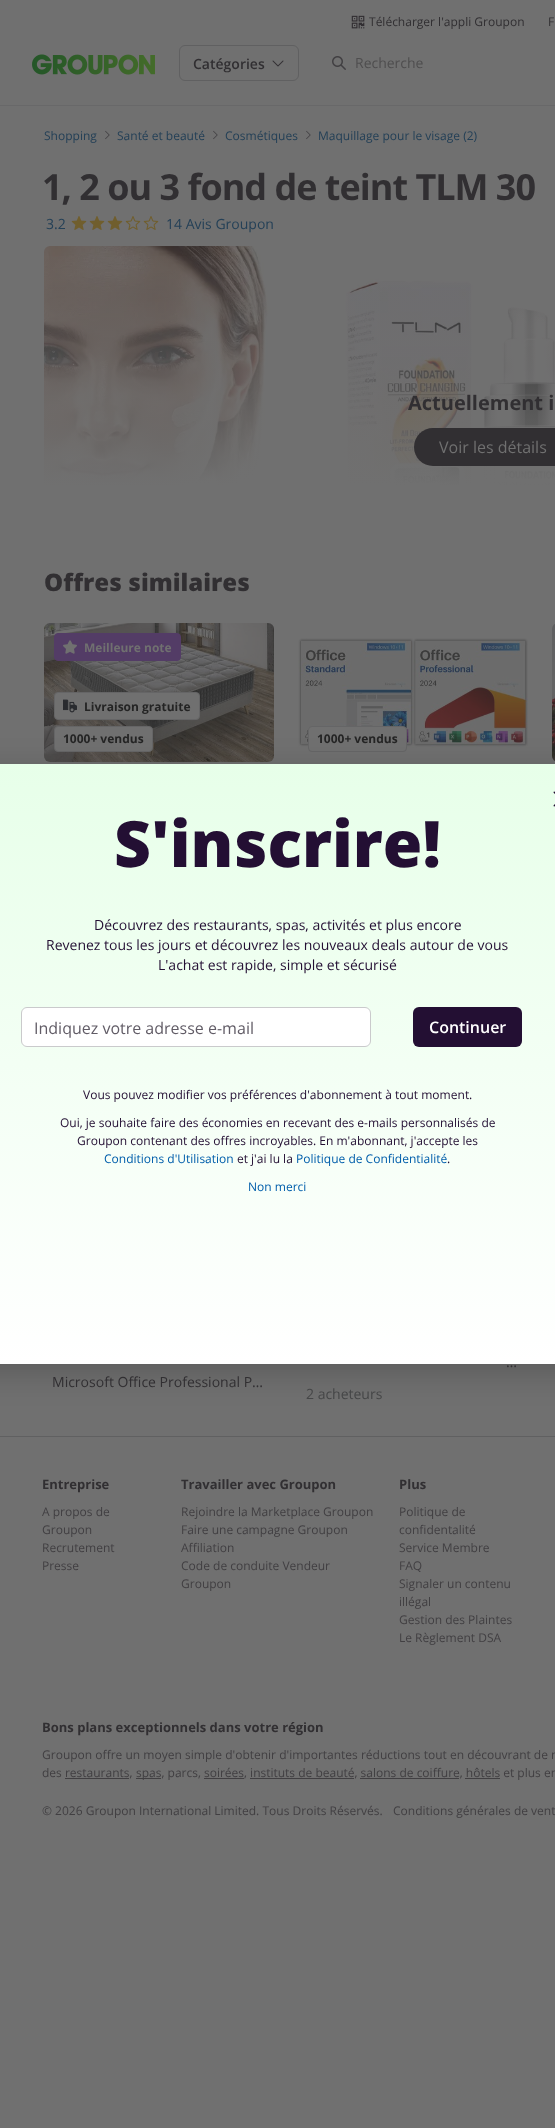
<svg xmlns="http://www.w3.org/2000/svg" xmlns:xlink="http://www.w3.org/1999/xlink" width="555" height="2128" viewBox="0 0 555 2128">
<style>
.cls-1{font:12px Open Sans;fill:#312f32}
.cls-2{font:600 14px Open Sans;fill:#312f32}
.cls-3{font:14px Open Sans;fill:#4f4e4f}
.cls-4{font:12px Open Sans;fill:#244057}
.cls-5{font:bold 36px Open Sans;letter-spacing:-1px;fill:#312f32}
.cls-6{font:14px Open Sans;fill:#244057}
.cls-7{font:bold 20px Open Sans;fill:#312f32}
.cls-8{font:16px Open Sans;fill:#707070}
.cls-9{font:800 24px Open Sans;fill:#312f32}
.cls-10{font:bold 12px Open Sans;fill:#707070}
.cls-11{font:bold 12px Open Sans;fill:#242424}
.cls-12{font:14px Open Sans;fill:#312f32}
.cls-13{font:14px Open Sans;fill:#454647}
.cls-14{font:800 64px Open Sans;fill:#230f33}
.cls-15{font:14px Open Sans;fill:#230f33}
.cls-16{font:16px Open Sans;fill:#615c66}
.cls-17{font:600 16px Open Sans;fill:#ffffff}
.cls-18{font:12px Open Sans;fill:#230f33}
.cls-19{font:12px Open Sans;fill:#005eab}
.cls-20{font:bold 13px Open Sans;fill:#312f32}
.cls-21{font:12px Open Sans;fill:#413f42}
</style>
<defs>
<linearGradient id="g1" gradientUnits="userSpaceOnUse" x1="540" y1="246" x2="540" y2="546"><stop offset="0" stop-color="#707070" stop-opacity="0"/><stop offset="0.8" stop-color="#707070"/></linearGradient>
<linearGradient id="g2" gradientUnits="userSpaceOnUse" x1="278" y1="764" x2="278" y2="1364"><stop offset="0" stop-color="#e7ffe9"/><stop offset="1" stop-color="#ffffff"/><stop offset="1" stop-color="#ffffff"/></linearGradient>
</defs>
<rect width="100%" height="100%" fill="#707070"/>
<image xlink:href="image0.png" x="351" y="15" width="14" height="14"/>
<image xlink:href="image1.png" x="32" y="54" width="123" height="21"/>
<rect fill="none" stroke="#606061" x="179.5" y="45.5" width="119" height="35" rx="5.5"/>
<image xlink:href="image2.png" x="272" y="60" width="12" height="7"/>
<image xlink:href="image3.png" x="332" y="56" width="14" height="14"/>
<rect fill="#686869" x="0" y="105" width="555" height="1"/>
<image xlink:href="image4.png" x="105" y="130" width="5" height="10"/>
<image xlink:href="image4.png" x="213" y="130" width="5" height="10"/>
<image xlink:href="image4.png" x="306" y="130" width="5" height="10"/>
<image xlink:href="image5.png" x="71" y="216" width="16" height="14"/>
<image xlink:href="image5.png" x="89" y="216" width="16" height="14"/>
<image xlink:href="image5.png" x="107" y="216" width="16" height="14"/>
<image xlink:href="image6.png" x="125" y="216" width="16" height="14"/>
<image xlink:href="image6.png" x="143" y="216" width="16" height="14"/>
<image xlink:href="image7.png" x="44" y="246" width="511" height="239"/>
<rect fill="url(#g1)" x="44" y="256" width="511" height="229"/>
<rect fill="#312f32" x="414" y="428" width="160" height="38" rx="19"/>
<image xlink:href="image8.png" x="44" y="623" width="230" height="139"/>
<rect fill="#533c66" stroke="#533c66" x="54.5" y="633.5" width="126" height="27" rx="3.5"/>
<image xlink:href="image9.png" x="63" y="640" width="14" height="14"/>
<rect fill="#707070" stroke="#656566" x="54.5" y="692.5" width="145" height="27" rx="3.5"/>
<image xlink:href="image10.png" x="63" y="699" width="14" height="14"/>
<rect fill="#707070" stroke="#656566" x="54.5" y="726.5" width="98" height="25" rx="3.5"/>
<image xlink:href="image11.png" x="298" y="623" width="230" height="139"/>
<rect fill="#707070" stroke="#656566" x="308.5" y="726.5" width="98" height="25" rx="3.5"/>
<image xlink:href="image12.png" x="552" y="624" width="3" height="138"/>
<rect fill="#000000" fill-opacity="0.2" filter="blur(16px)" x="-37" y="772" width="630" height="600" rx="6"/>
<rect fill="url(#g2)" x="0" y="764" width="555" height="600"/>
<image xlink:href="image13.png" x="553" y="791" width="2" height="16"/>
<rect fill="#ffffff" stroke="#cacacc" x="21.5" y="1007.5" width="349" height="39" rx="5.5"/>
<rect fill="#230f33" x="413" y="1007" width="109" height="40" rx="6"/>
<rect fill="#606061" x="0" y="1436" width="555" height="1"/>
<rect fill="#413f42" x="136" y="1778" width="25" height="1"/>
<rect fill="#413f42" x="65" y="1778" width="64" height="1"/>
<rect fill="#413f42" x="204" y="1778" width="40" height="1"/>
<rect fill="#413f42" x="250" y="1778" width="104" height="1"/>
<rect fill="#413f42" x="360" y="1778" width="99" height="1"/>
<rect fill="#413f42" x="465" y="1778" width="35" height="1"/>
<text class="cls-1" x="369" y="26">Télécharger l'appli Groupon</text>
<text class="cls-1" x="548" y="26">F</text>
<text class="cls-2" x="193" y="69">Catégories</text>
<text class="cls-3" x="355" y="68">Recherche</text>
<text class="cls-4" x="44" y="140">Shopping</text>
<text class="cls-4" x="117" y="140">Santé et beauté</text>
<text class="cls-4" x="225" y="140">Cosmétiques</text>
<text class="cls-4" x="318" y="140">Maquillage pour le visage (2)</text>
<text class="cls-5" x="42" y="200">1, 2 ou 3 fond de teint TLM 30</text>
<text class="cls-6" x="46" y="229">3.2</text>
<text class="cls-6" x="166" y="229">14 Avis Groupon</text>
<text class="cls-7" x="408" y="410">Actuellement i</text>
<text class="cls-8" x="439" y="453">Voir les détails</text>
<text class="cls-9" x="44" y="591">Offres similaires</text>
<text class="cls-10" x="84" y="652">Meilleure note</text>
<text class="cls-11" x="84" y="711">Livraison gratuite</text>
<text class="cls-11" x="63" y="743">1000+ vendus</text>
<text class="cls-11" x="317" y="743">1000+ vendus</text>
<text class="cls-12" x="52" y="1387">Microsoft Office Professional P…</text>
<text class="cls-12" x="506" y="1367">…</text>
<text class="cls-13" x="306" y="1399">2 acheteurs</text>
<text class="cls-14" x="114" y="867">S'inscrire!</text>
<text class="cls-15" x="94" y="930">Découvrez des restaurants, spas, activités et plus encore</text>
<text class="cls-15" x="46" y="950">Revenez tous les jours et découvrez les nouveaux deals autour de vous</text>
<text class="cls-15" x="158" y="970">L'achat est rapide, simple et sécurisé</text>
<text class="cls-16" x="34" y="1034">Indiquez votre adresse e-mail</text>
<text class="cls-17" x="429" y="1033">Continuer</text>
<text class="cls-18" x="83" y="1099">Vous pouvez modifier vos préférences d'abonnement à tout moment.</text>
<text class="cls-18" x="60" y="1127">Oui, je souhaite faire des économies en recevant des e-mails personnalisés de</text>
<text class="cls-18" x="77" y="1145">Groupon contenant des offres incroyables. En m'abonnant, j'accepte les</text>
<text class="cls-19" x="104" y="1163">Conditions d'Utilisation</text>
<text class="cls-18" x="237" y="1163">et j'ai lu la</text>
<text class="cls-19" x="296" y="1163">Politique de Confidentialité</text>
<text class="cls-18" x="447" y="1163">.</text>
<text class="cls-19" x="248" y="1191">Non merci</text>
<text class="cls-20" x="42" y="1489">Entreprise</text>
<text class="cls-21"><tspan x="42" y="1516">A propos de</tspan><tspan x="42" y="1534">Groupon</tspan><tspan x="42" y="1552">Recrutement</tspan><tspan x="42" y="1570">Presse</tspan></text>
<text class="cls-20" x="181" y="1489">Travailler avec Groupon</text>
<text class="cls-21"><tspan x="181" y="1516">Rejoindre la Marketplace Groupon</tspan><tspan x="181" y="1534">Faire une campagne Groupon</tspan><tspan x="181" y="1552">Affiliation</tspan><tspan x="181" y="1570">Code de conduite Vendeur</tspan><tspan x="181" y="1588">Groupon</tspan></text>
<text class="cls-20" x="399" y="1489">Plus</text>
<text class="cls-21"><tspan x="399" y="1516">Politique de</tspan><tspan x="399" y="1534">confidentalité</tspan><tspan x="399" y="1552">Service Membre</tspan><tspan x="399" y="1570">FAQ</tspan><tspan x="399" y="1588">Signaler un contenu</tspan><tspan x="399" y="1606">illégal</tspan><tspan x="399" y="1624">Gestion des Plaintes</tspan><tspan x="399" y="1642">Le Règlement DSA</tspan></text>
<text class="cls-20" x="42" y="1732">Bons plans exceptionnels dans votre région</text>
<text class="cls-21"><tspan x="42" y="1759">Groupon offre un moyen simple d'obtenir d'importantes réductions tout en découvrant de n</tspan><tspan x="42" y="1777">des restaurants,</tspan></text>
<text class="cls-21" x="136" y="1777">spas, parcs, soirées, instituts de beauté, salons de coiffure, hôtels et plus en</text>
<text class="cls-21" x="42" y="1815">© 2026 Groupon International Limited. Tous Droits Réservés.</text>
<text class="cls-21" x="393" y="1815">Conditions générales de vent</text>
</svg>
